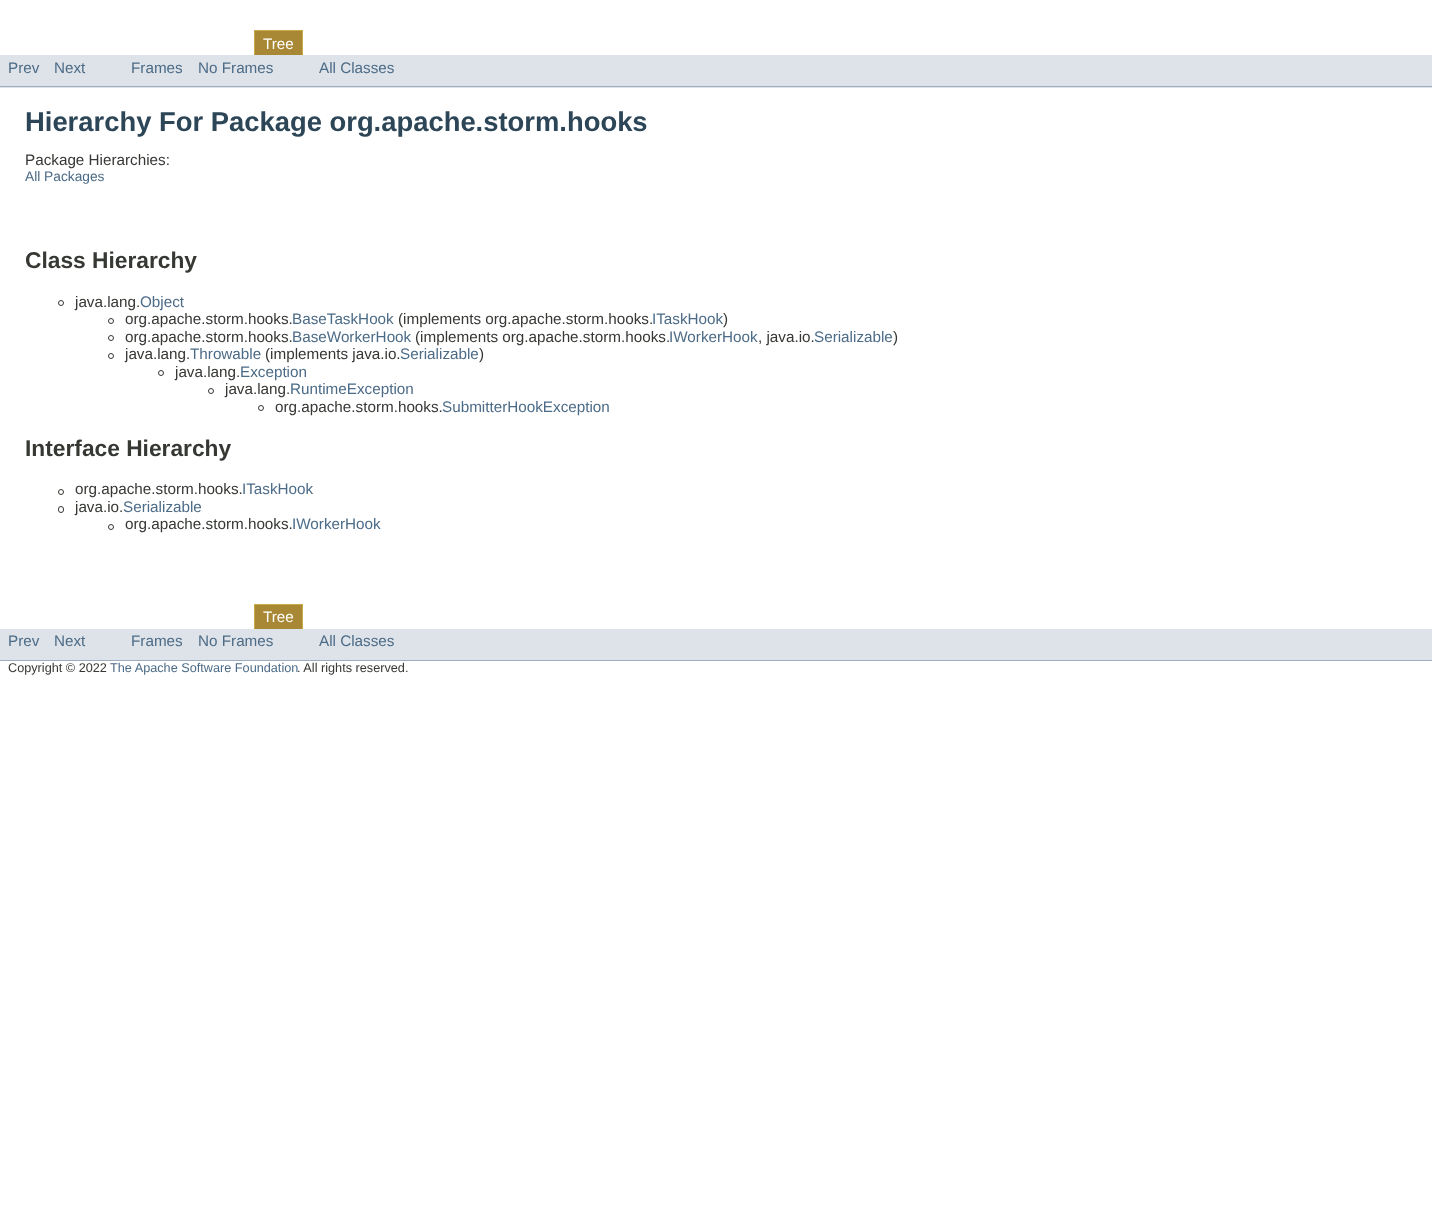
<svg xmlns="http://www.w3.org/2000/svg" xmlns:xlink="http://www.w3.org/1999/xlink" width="1432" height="1211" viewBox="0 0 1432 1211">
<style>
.cls-1{font:15.25px Liberation Sans;fill:#ffffff}
.cls-2{font:15.25px Liberation Sans;fill:#4c6b87}
.cls-3{font:bold 27.4px Liberation Sans;fill:#2c4557}
.cls-4{font:15.25px Liberation Sans;fill:#353833}
.cls-5{font:13.75px Liberation Sans;fill:#4c6b87}
.cls-6{font:bold 22.75px Liberation Sans;fill:#353833}
.cls-7{font:12.7px Liberation Sans;fill:#353833}
.cls-8{font:12.7px Liberation Sans;fill:#4c6b87}
</style>
<rect width="100%" height="100%" fill="#ffffff"/>
<rect fill="#a88834" x="255" y="31" width="47" height="24"/>
<rect fill="none" stroke="#c9aa44" x="254.5" y="30.5" width="48" height="27"/>
<rect fill="#dee3e9" x="0" y="55" width="1432" height="33"/>
<rect fill="#9eadc0" x="0" y="86" width="1432" height="1"/>
<circle fill="none" stroke="#353833" cx="61" cy="303" r="2.5"/>
<circle fill="none" stroke="#353833" cx="111" cy="321" r="2.5"/>
<circle fill="none" stroke="#353833" cx="111" cy="338" r="2.5"/>
<circle fill="none" stroke="#353833" cx="111" cy="356" r="2.5"/>
<circle fill="none" stroke="#353833" cx="161" cy="373" r="2.5"/>
<circle fill="none" stroke="#353833" cx="211" cy="391" r="2.5"/>
<circle fill="none" stroke="#353833" cx="261" cy="408" r="2.5"/>
<circle fill="none" stroke="#353833" cx="61" cy="492" r="2.5"/>
<rect fill="none" stroke="#353833" x="58.5" y="506.5" width="5" height="6" rx="2.5"/>
<circle fill="none" stroke="#353833" cx="111" cy="527" r="2.5"/>
<rect fill="#a88834" x="255" y="605" width="47" height="24"/>
<rect fill="none" stroke="#c9aa44" x="254.5" y="604.5" width="48" height="26"/>
<rect fill="#dee3e9" x="0" y="629" width="1432" height="31"/>
<rect fill="#9eadc0" x="0" y="660" width="1432" height="1"/>
<text class="cls-1" x="263" y="49">Tree</text>
<text class="cls-2" x="8" y="73">Prev</text>
<text class="cls-2" x="54" y="73">Next</text>
<text class="cls-2" x="131" y="73">Frames</text>
<text class="cls-2" x="198" y="73">No Frames</text>
<text class="cls-2" x="319" y="73">All Classes</text>
<text class="cls-3" x="25" y="131">Hierarchy For Package org.apache.storm.hooks</text>
<text class="cls-4" x="25" y="165">Package Hierarchies:</text>
<text class="cls-5" x="25" y="181">All Packages</text>
<text class="cls-6" x="25" y="268">Class Hierarchy</text>
<text class="cls-4" x="75" y="307">java.lang.</text>
<text class="cls-2" x="140" y="307">Object</text>
<text class="cls-4" x="125" y="324">org.apache.storm.hooks.</text>
<text class="cls-2" x="292" y="324">BaseTaskHook</text>
<text class="cls-4" x="398" y="324">(implements org.apache.storm.hooks.</text>
<text class="cls-2" x="652" y="324">ITaskHook</text>
<text class="cls-4" x="723" y="324">)</text>
<text class="cls-4" x="125" y="342">org.apache.storm.hooks.</text>
<text class="cls-2" x="292" y="342">BaseWorkerHook</text>
<text class="cls-4" x="415" y="342">(implements org.apache.storm.hooks.</text>
<text class="cls-2" x="669" y="342">IWorkerHook</text>
<text class="cls-4" x="758" y="342">, java.io.</text>
<text class="cls-2" x="814" y="342">Serializable</text>
<text class="cls-4" x="893" y="342">)</text>
<text class="cls-4" x="125" y="359">java.lang.</text>
<text class="cls-2" x="190" y="359">Throwable</text>
<text class="cls-4" x="265" y="359">(implements java.io.</text>
<text class="cls-2" x="400" y="359">Serializable</text>
<text class="cls-4" x="479" y="359">)</text>
<text class="cls-4" x="175" y="377">java.lang.</text>
<text class="cls-2" x="240" y="377">Exception</text>
<text class="cls-4" x="225" y="394">java.lang.</text>
<text class="cls-2" x="290" y="394">RuntimeException</text>
<text class="cls-4" x="275" y="412">org.apache.storm.hooks.</text>
<text class="cls-2" x="442" y="412">SubmitterHookException</text>
<text class="cls-6" x="25" y="456">Interface Hierarchy</text>
<text class="cls-4" x="75" y="494">org.apache.storm.hooks.</text>
<text class="cls-2" x="242" y="494">ITaskHook</text>
<text class="cls-4" x="75" y="512">java.io.</text>
<text class="cls-2" x="123" y="512">Serializable</text>
<text class="cls-4" x="125" y="529">org.apache.storm.hooks.</text>
<text class="cls-2" x="292" y="529">IWorkerHook</text>
<text class="cls-1" x="263" y="622">Tree</text>
<text class="cls-2" x="8" y="646">Prev</text>
<text class="cls-2" x="54" y="646">Next</text>
<text class="cls-2" x="131" y="646">Frames</text>
<text class="cls-2" x="198" y="646">No Frames</text>
<text class="cls-2" x="319" y="646">All Classes</text>
<text class="cls-7" x="8" y="672">Copyright © 2022</text>
<text class="cls-8" x="110" y="672">The Apache Software Foundation</text>
<text class="cls-7" x="297" y="672">. All rights reserved.</text>
</svg>
